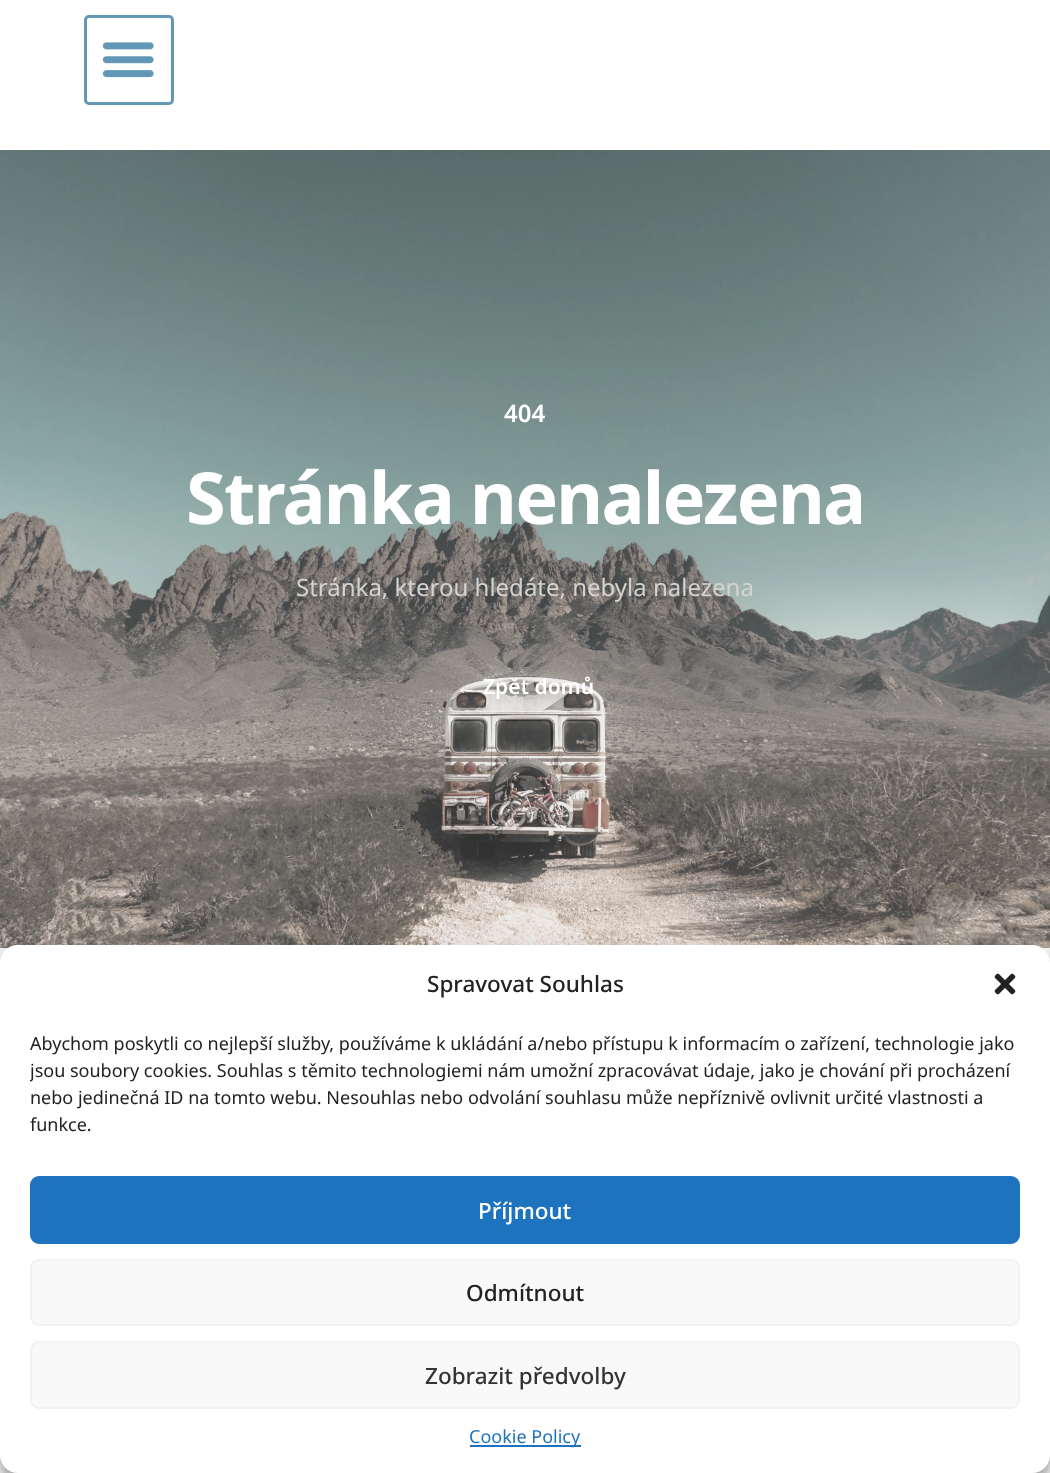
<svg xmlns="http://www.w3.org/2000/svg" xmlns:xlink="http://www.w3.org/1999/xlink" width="1050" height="1473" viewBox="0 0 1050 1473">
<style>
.cls-1{font:600 24px Noto Sans;fill:#ffffff}
.cls-2{font:bold 72px Noto Sans;letter-spacing:-1.75px;fill:#ffffff}
.cls-3{font:24px Noto Sans;fill:#d3d3d2}
.cls-4{font:bold 21px Liberation Sans;fill:#ffffff}
.cls-5{font:600 21px Noto Sans;fill:#ffffff}
.cls-6{font:500 22.5px Noto Sans;fill:#222222}
.cls-7{font:18px Noto Sans;fill:#222222}
.cls-8{font:500 22.5px Noto Sans;fill:#ffffff}
.cls-9{font:500 22.5px Noto Sans;fill:#333333}
.cls-10{font:18px Noto Sans;fill:#1e73be}
</style>
<defs>
<clipPath id="clip1"><rect x="30" y="1031" width="990" height="115"/></clipPath>
</defs>
<rect width="100%" height="100%" fill="#ffffff"/>
<rect fill="none" stroke="#6397b6" stroke-width="3" x="85.5" y="16.5" width="87" height="87" rx="3.5"/>
<image xlink:href="image0.png" x="102" y="42" width="52" height="36"/>
<image xlink:href="image1.png" x="0" y="150" width="1050" height="798"/>
<rect fill="#f2f2f2" x="0" y="948" width="1050" height="515"/>
<rect fill="#000000" fill-opacity="0.23" filter="blur(4.5px)" x="0" y="954" width="1050" height="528" rx="18"/>
<rect fill="#000000" fill-opacity="0.19" filter="blur(15px)" x="0" y="960" width="1050" height="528" rx="18"/>
<rect fill="#ffffff" x="0" y="945" width="1050" height="528" rx="18"/>
<image xlink:href="image2.png" x="994" y="973" width="22" height="22"/>
<rect fill="#1e73be" stroke="#1e73be" stroke-width="2" x="31" y="1177" width="988" height="66" rx="8"/>
<rect fill="#f9f9f9" stroke="#f2f2f2" stroke-width="2" x="31" y="1260" width="988" height="65" rx="8"/>
<rect fill="#f9f9f9" stroke="#f2f2f2" stroke-width="2" x="31" y="1342" width="988" height="66" rx="8"/>
<rect fill="#1e73be" x="470" y="1445" width="111" height="2"/>
<text class="cls-1" x="504" y="422">404</text>
<text class="cls-2" x="186" y="524">Stránka nenalezena</text>
<text class="cls-3" x="296" y="596">Stránka, kterou hledáte, nebyla nalezena</text>
<text class="cls-4" x="456" y="694">←</text>
<text class="cls-5" x="483" y="694">Zpět domů</text>
<text class="cls-6" x="427" y="992">Spravovat Souhlas</text>
<text class="cls-7" x="30" y="1050">Abychom poskytli co nejlepší služby, používáme k ukládání a/nebo přístupu k informacím o zařízení, technologie jako</text>
<g clip-path="url(#clip1)">
<text class="cls-7" x="30" y="1077">jsou soubory cookies. Souhlas s těmito technologiemi nám umožní zpracovávat údaje, jako je chování při procházení</text>
</g>
<text class="cls-7"><tspan x="30" y="1104">nebo jedinečná ID na tomto webu. Nesouhlas nebo odvolání souhlasu může nepříznivě ovlivnit určité vlastnosti a</tspan><tspan x="30" y="1131">funkce.</tspan></text>
<text class="cls-8" x="478" y="1219">Příjmout</text>
<text class="cls-6" x="466" y="1301">Odmítnout</text>
<text class="cls-9" x="425" y="1384">Zobrazit předvolby</text>
<text class="cls-10" x="469" y="1443">Cookie Policy</text>
</svg>
